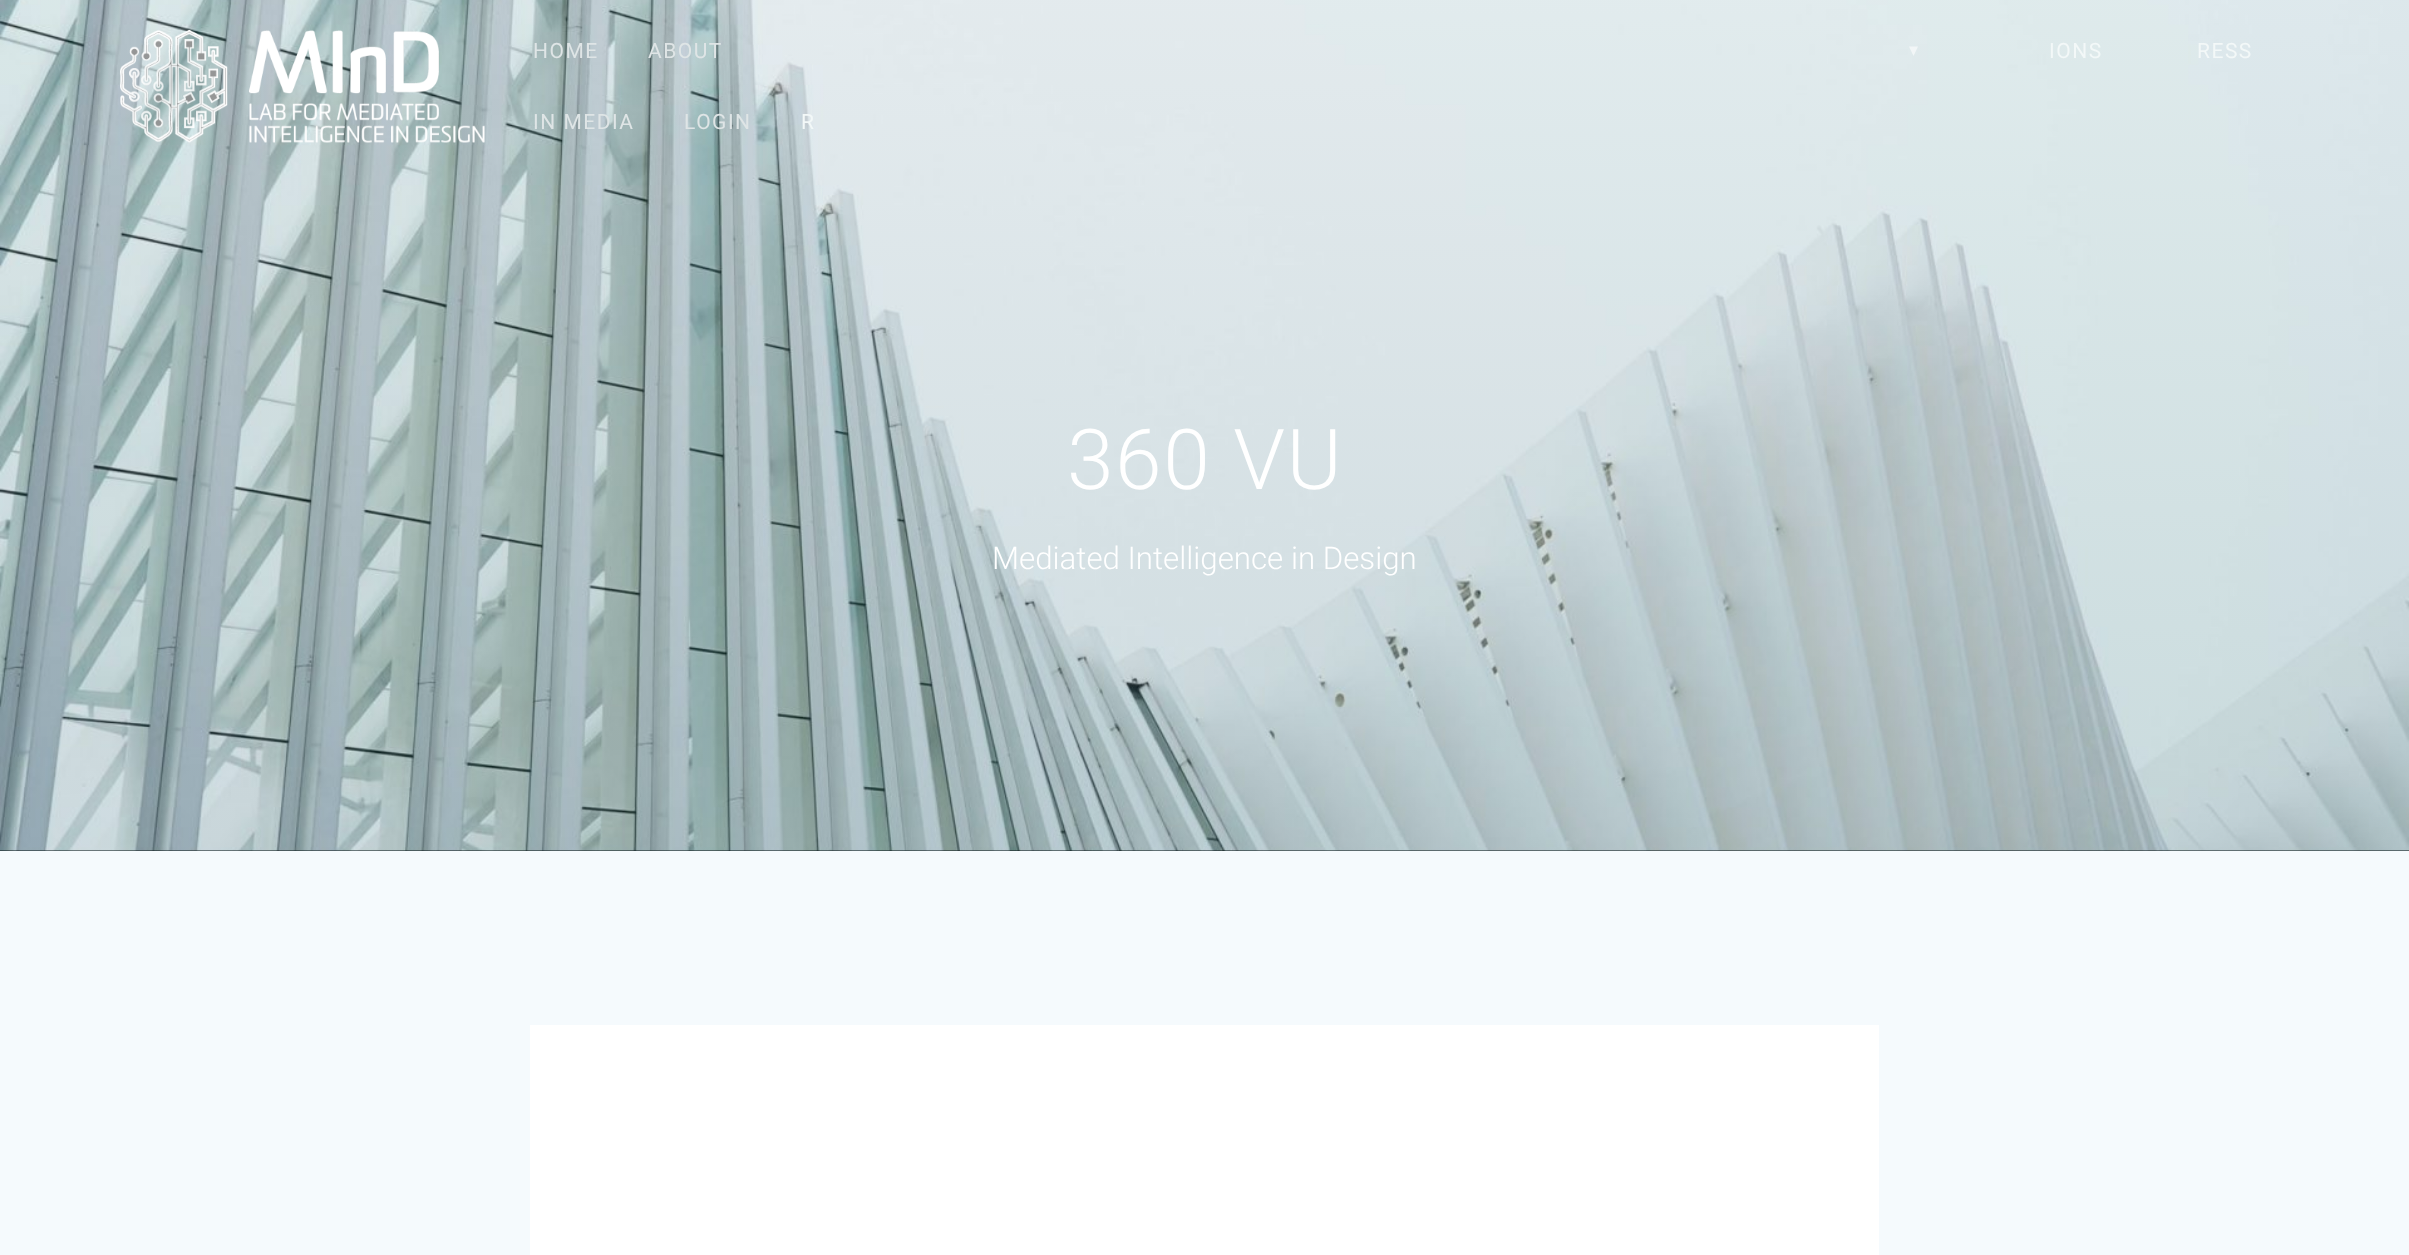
<svg xmlns="http://www.w3.org/2000/svg" xmlns:xlink="http://www.w3.org/1999/xlink" width="2409" height="1255" viewBox="0 0 2409 1255">
<style>
.cls-1{font:21px Roboto;letter-spacing:1.5px;fill:#dfe5e6}
.cls-2{font:21px Roboto;letter-spacing:1.5px;fill:#f3f8f8}
.cls-3{font:300 84px Roboto;letter-spacing:1.5px;fill:#ffffff}
.cls-4{font:300 31.25px Roboto;fill:#ffffff}
</style>
<defs>
<linearGradient id="g1" gradientUnits="userSpaceOnUse" x1="1205" y1="0" x2="1205" y2="851"><stop offset="0" stop-color="#1f5e6a" stop-opacity="0.1"/><stop offset="1" stop-color="#1f5e6a" stop-opacity="0.2"/></linearGradient>
</defs>
<rect width="100%" height="100%" fill="#000000"/>
<image xlink:href="image1.png" x="0" y="0" width="2409" height="851"/>
<rect fill="url(#g1)" x="0" y="0" width="2409" height="851"/>
<image xlink:href="image0.png" x="120" y="30" width="365" height="113"/>
<path fill="#f2f6f7" d="M1909 46.5L1913.5 56L1918 46.5Z"/>
<rect fill="#f5fafd" x="0" y="851" width="2409" height="404"/>
<rect fill="#ffffff" x="530" y="1025" width="1349" height="230"/>
<text class="cls-1" x="533" y="58">HOME</text>
<text class="cls-1" x="648" y="58">ABOUT</text>
<text class="cls-2" x="2049" y="58">IONS</text>
<text class="cls-2" x="2197" y="58">RESS</text>
<text class="cls-1" x="533" y="129">IN MEDIA</text>
<text class="cls-1" x="684" y="129">LOGIN</text>
<text class="cls-2" x="801" y="129">R</text>
<text class="cls-3" x="1067" y="489">360 VU</text>
<text class="cls-4" x="992" y="569">Mediated Intelligence in Design</text>
</svg>
